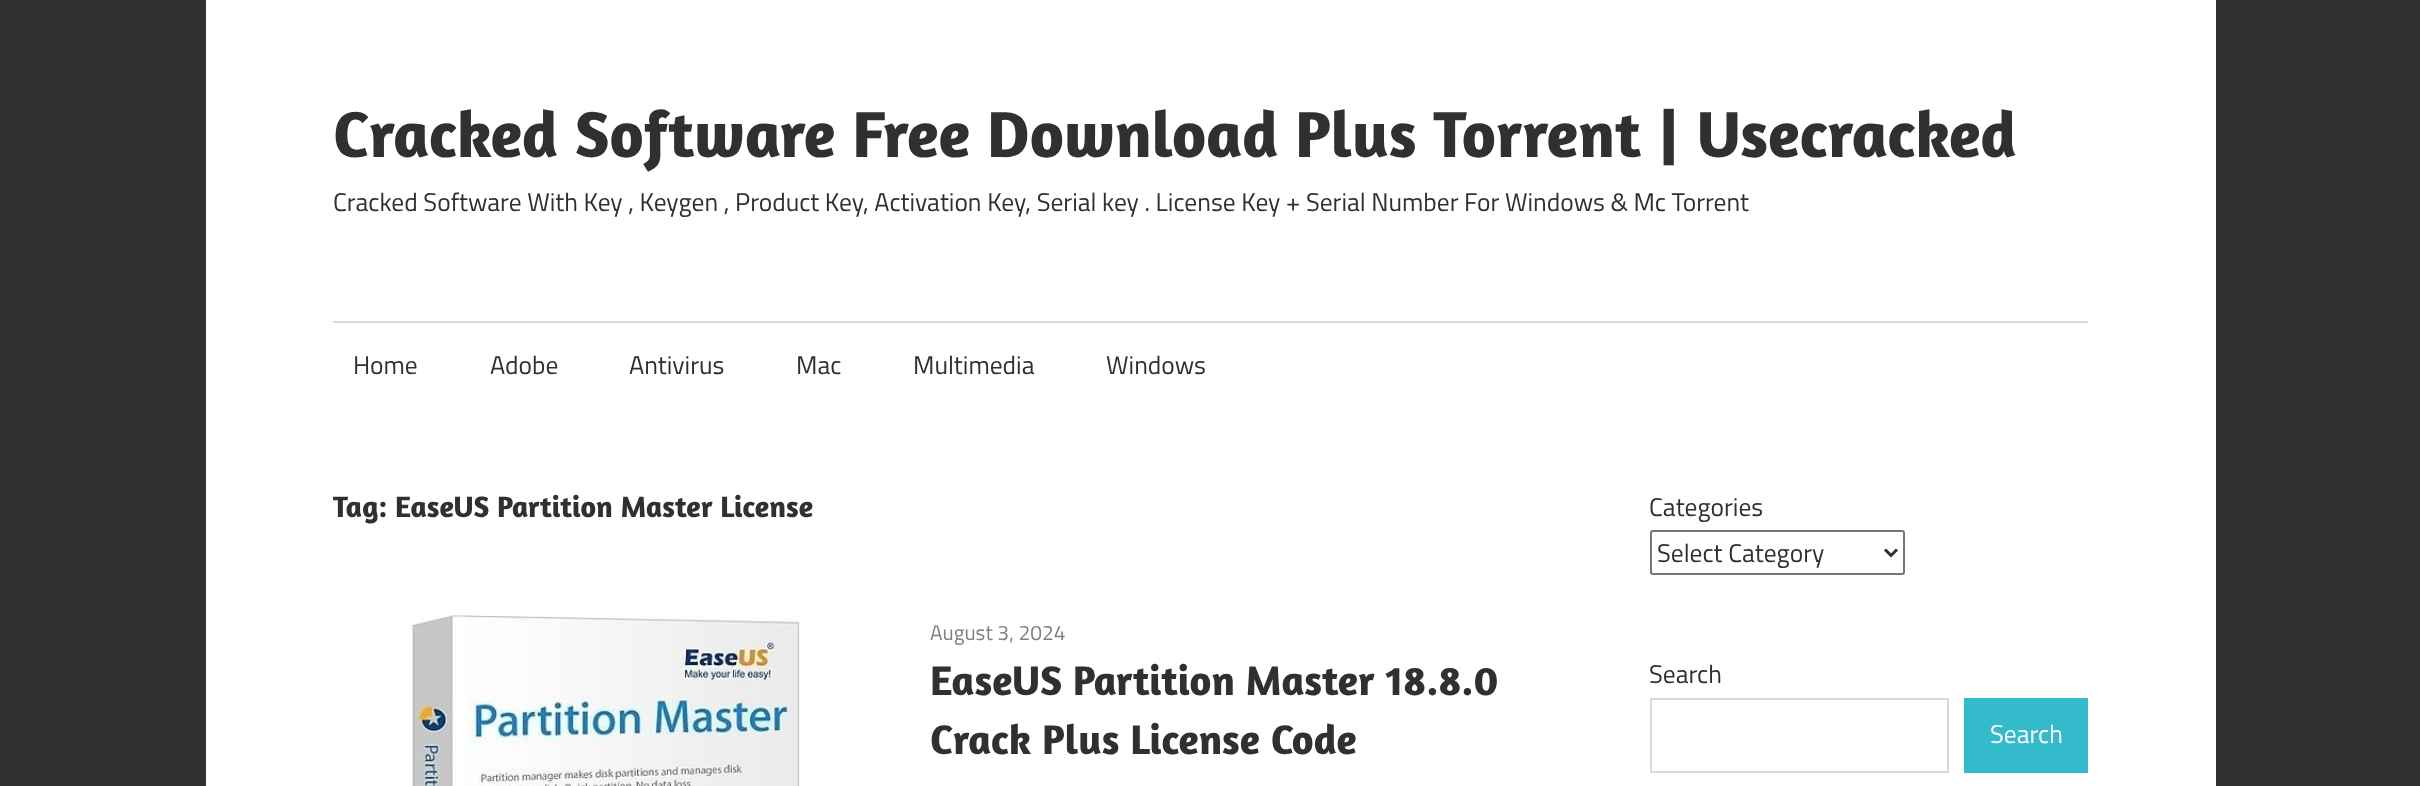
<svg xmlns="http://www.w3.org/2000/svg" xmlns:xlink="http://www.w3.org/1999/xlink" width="2420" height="786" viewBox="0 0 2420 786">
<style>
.cls-1{font:bold 66px Amaranth;fill:#303030}
.cls-2{font:25.5px Titillium Web;fill:#303030}
.cls-3{font:bold 30px Amaranth;fill:#303030}
.cls-4{font:21px Titillium Web;fill:#808080}
.cls-5{font:bold 42px Amaranth;fill:#303030}
.cls-6{font:25.5px Titillium Web;fill:#ffffff}
</style>
<rect width="100%" height="100%" fill="#303030"/>
<rect fill="#ffffff" x="206" y="0" width="2010" height="786"/>
<rect fill="#d9d9d9" x="333" y="321" width="1755" height="2"/>
<image xlink:href="image0.png" x="410" y="615" width="392" height="171"/>
<rect fill="none" stroke="#767676" stroke-width="2" x="1651" y="531" width="253" height="43" rx="2"/>
<path fill="none" stroke="#303030" stroke-width="3" d="M1885 549.5L1891 555.5L1897 549.5"/>
<rect fill="none" stroke="#d9d9d9" stroke-width="2" x="1651" y="699" width="297" height="73"/>
<rect fill="#33bbcc" x="1964" y="698" width="124" height="75"/>
<text class="cls-1" x="333" y="157">Cracked Software Free Download Plus Torrent | Usecracked</text>
<text class="cls-2" x="333" y="211">Cracked Software With Key , Keygen , Product Key, Activation Key, Serial key . License Key + Serial Number For Windows &amp; Mc Torrent</text>
<text class="cls-2" x="353" y="374">Home</text>
<text class="cls-2" x="490" y="374">Adobe</text>
<text class="cls-2" x="629" y="374">Antivirus</text>
<text class="cls-2" x="796" y="374">Mac</text>
<text class="cls-2" x="913" y="374">Multimedia</text>
<text class="cls-2" x="1106" y="374">Windows</text>
<text class="cls-3" x="333" y="517">Tag: EaseUS Partition Master License</text>
<text class="cls-4" x="930" y="640">August 3, 2024</text>
<text class="cls-5"><tspan x="930" y="695">EaseUS Partition Master 18.8.0</tspan><tspan x="930" y="754">Crack Plus License Code</tspan></text>
<text class="cls-2" x="1649" y="516">Categories</text>
<text class="cls-2" x="1657" y="562">Select Category</text>
<text class="cls-2" x="1649" y="683">Search</text>
<text class="cls-6" x="1990" y="743">Search</text>
</svg>
